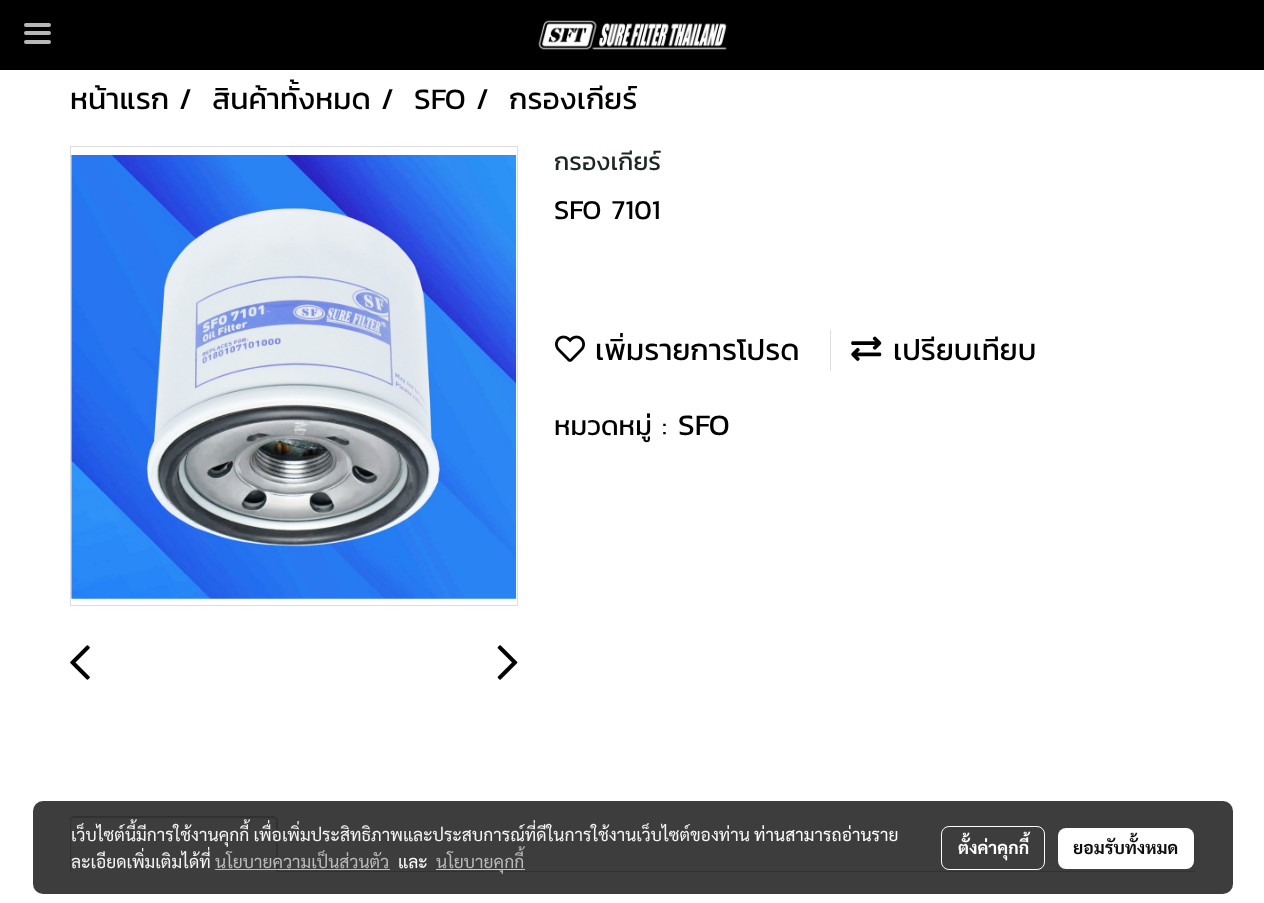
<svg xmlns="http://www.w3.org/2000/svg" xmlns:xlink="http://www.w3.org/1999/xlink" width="1264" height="903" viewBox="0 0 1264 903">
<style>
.cls-1{font:30px Kanit;fill:#000000}
.cls-2{font:25px Kanit;fill:#1c2723}
.cls-3{font:27.5px Kanit;fill:#000000}
.cls-4{font:17.5px Sarabun;fill:#f5f5f5}
.cls-5{font:17.5px Sarabun;fill:#ffffff}
.cls-6{font:17.5px Sarabun;fill:#bbbbbb}
.cls-7{font:bold 17.5px Sarabun;fill:#ffffff}
.cls-8{font:bold 17.5px Sarabun;fill:#0d0d0d}
</style>
<rect width="100%" height="100%" fill="#ffffff"/>
<rect fill="#000000" x="0" y="0" width="1264" height="70"/>
<rect fill="#b7b7b7" x="24" y="31" width="27" height="4" rx="2"/>
<rect fill="#b7b7b7" x="24" y="23" width="27" height="4" rx="2"/>
<rect fill="#b7b7b7" x="24" y="40" width="27" height="4" rx="2"/>
<image xlink:href="image0.png" x="538" y="20" width="189" height="30"/>
<rect fill="none" stroke="#dddddd" x="70.5" y="146.5" width="447" height="459"/>
<image xlink:href="image1.png" x="71" y="155" width="446" height="444"/>
<image xlink:href="image2.png" x="70" y="645" width="20" height="35"/>
<image xlink:href="image3.png" x="497" y="645" width="21" height="35"/>
<image xlink:href="image4.png" x="555" y="335" width="30" height="27"/>
<rect fill="#dedede" x="830" y="330" width="1" height="41"/>
<image xlink:href="image5.png" x="851" y="336" width="31" height="25"/>
<path fill="#cccccc" fill-rule="evenodd" d="M75 816H272C275 816 278 818 278 821V872H70V821C70 818 72 816 75 816ZM75 818H272C275 818 276 819 276 821V872H71V821C71 819 73 818 75 818Z"/>
<rect fill="#cccccc" x="278" y="871" width="917" height="1"/>
<rect fill="#000000" fill-opacity="0.76" x="33" y="801" width="1200" height="93" rx="10"/>
<rect fill="#c2c2c2" fill-opacity="0.95" x="215" y="869" width="175" height="1"/>
<rect fill="#c5c5c5" x="436" y="869" width="89" height="1"/>
<rect fill="none" stroke="#ffffff" x="941.5" y="826.5" width="103" height="43" rx="7.5"/>
<rect fill="#ffffff" x="1058" y="828" width="136" height="41" rx="8"/>
<text class="cls-1" x="70" y="109">หน้าแรก</text>
<text class="cls-1" x="179" y="109">/</text>
<text class="cls-1" x="212" y="109">สินค้าทั้งหมด</text>
<text class="cls-1" x="381" y="109">/</text>
<text class="cls-1" x="414" y="109">SFO</text>
<text class="cls-1" x="476" y="109">/</text>
<text class="cls-1" x="509" y="109">กรองเกียร์</text>
<text class="cls-2" x="554" y="170">กรองเกียร์</text>
<text class="cls-3" x="554" y="219">SFO 7101</text>
<text class="cls-1" x="595" y="360">เพิ่มรายการโปรด</text>
<text class="cls-1" x="893" y="360">เปรียบเทียบ</text>
<text class="cls-3" x="554" y="435">หมวดหมู่ :</text>
<text class="cls-1" x="678" y="435">SFO</text>
<text class="cls-4" x="71" y="841">เว็บไซต์นี้มีการใช้งานคุกกี้ เพื่อเพิ่มประสิทธิภาพและประสบการณ์ที่ดีในการใช้งานเว็บไซต์ของท่าน</text>
<text class="cls-5" x="754" y="841">ท่านสามารถอ่านราย</text>
<text class="cls-4" x="71" y="868">ละเอียดเพิ่มเติมได้ที่</text>
<text class="cls-6" x="215" y="868">นโยบายความเป็นส่วนตัว</text>
<text class="cls-5" x="398" y="868">และ</text>
<text class="cls-6" x="436" y="868">นโยบายคุกกี้</text>
<text class="cls-7" x="958" y="854">ตั้งค่าคุกกี้</text>
<text class="cls-8" x="1073" y="854">ยอมรับทั้งหมด</text>
</svg>
